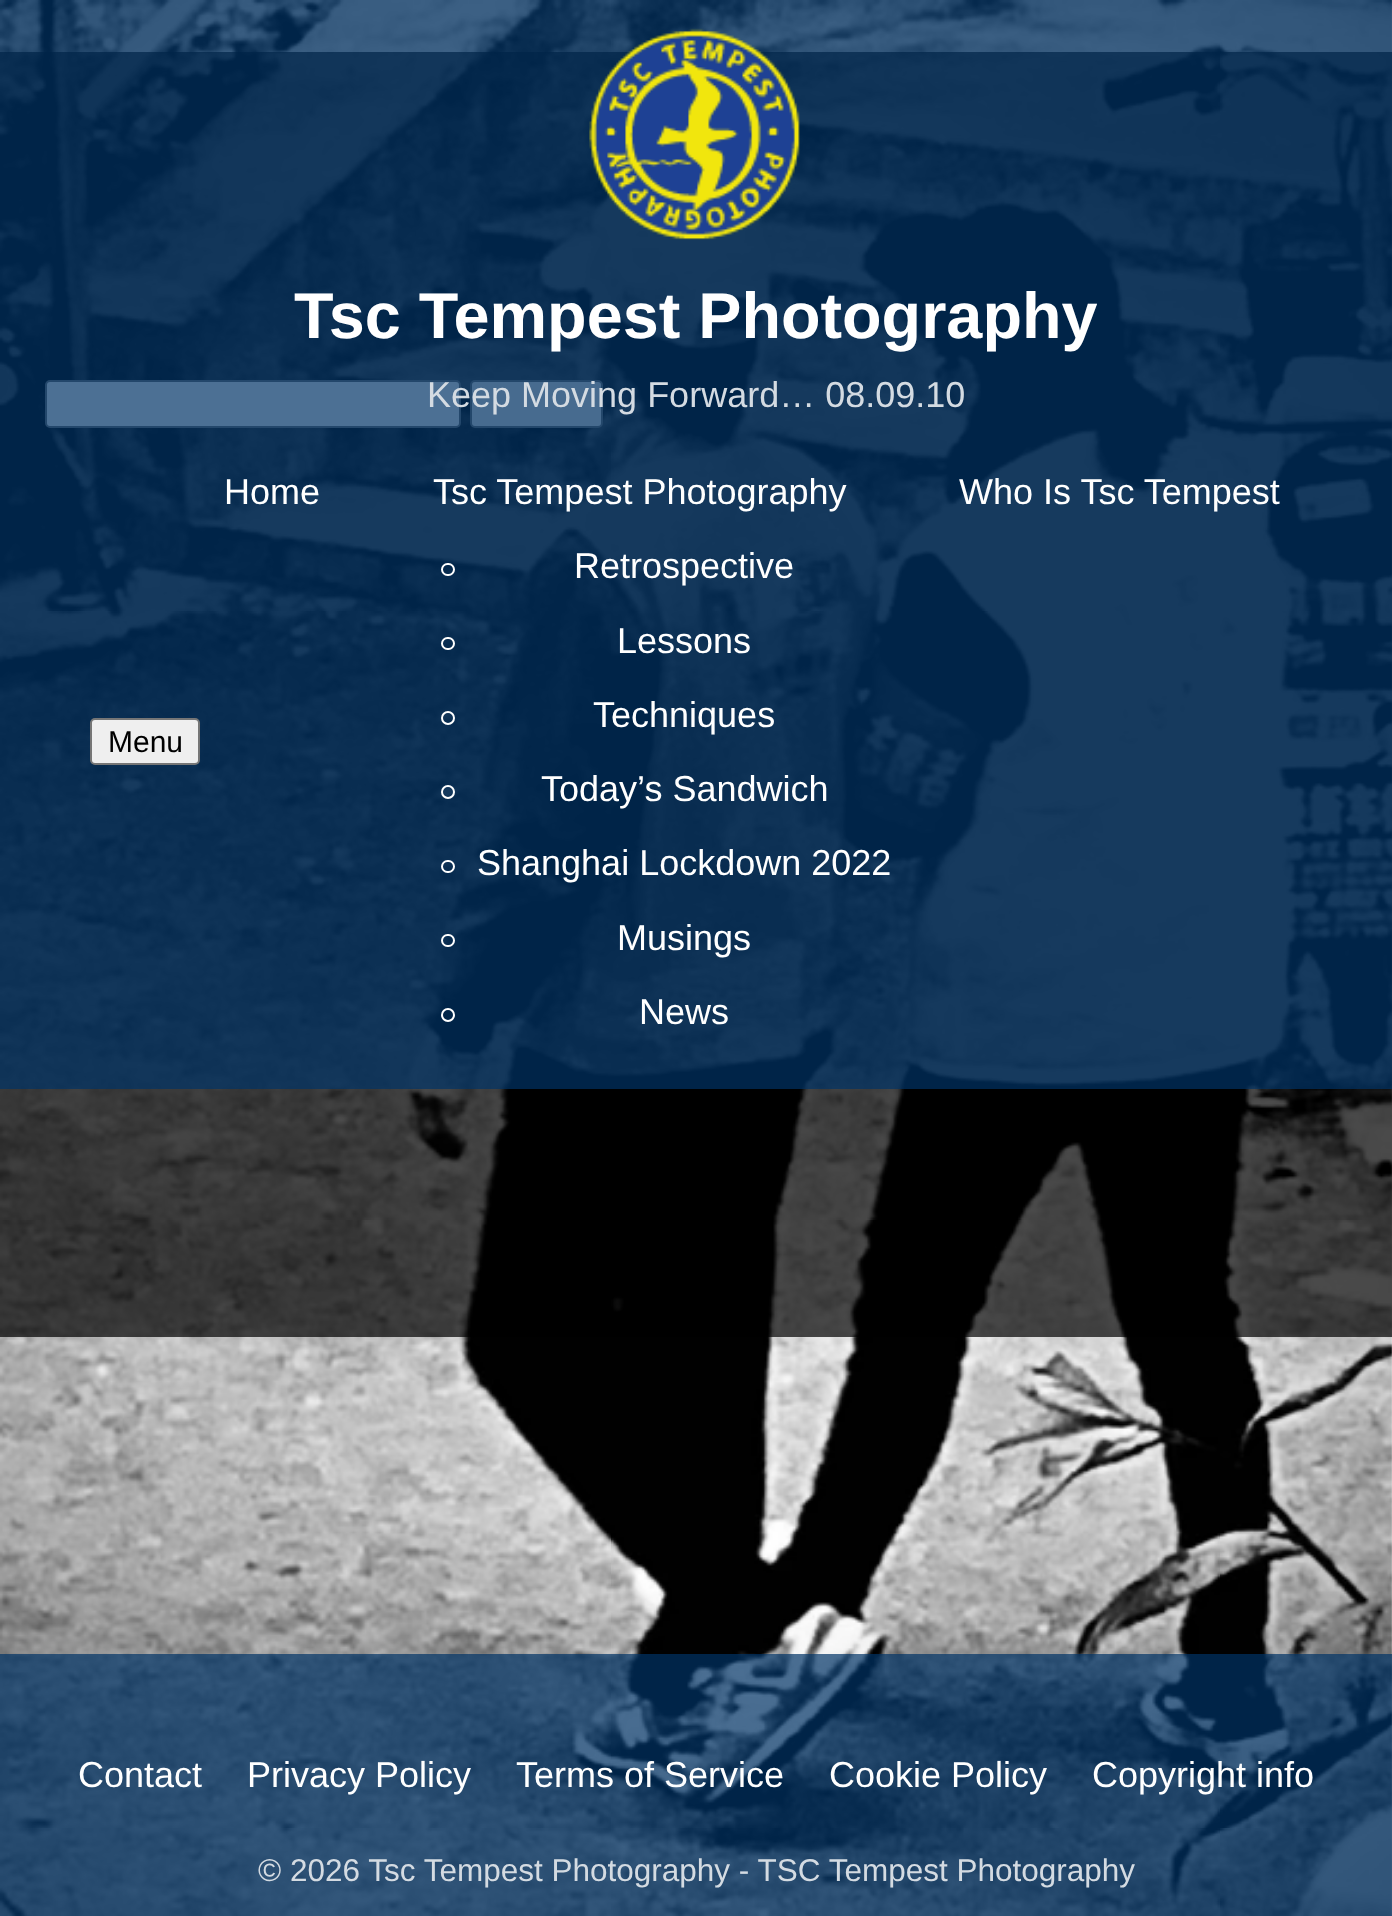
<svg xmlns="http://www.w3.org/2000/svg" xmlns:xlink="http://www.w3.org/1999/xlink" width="1392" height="1916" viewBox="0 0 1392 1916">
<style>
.cls-1{font:bold 64.75px Liberation Sans;fill:#ffffff}
.cls-2{font:36px Liberation Sans;fill:#d4dbe2}
.cls-3{font:30px Liberation Sans;fill:#000000}
.cls-4{font:36px Liberation Sans;fill:#ffffff}
.cls-5{font:31.5px Liberation Sans;fill:#d4dbe2}
</style>
<rect width="100%" height="100%" fill="#ffffff"/>
<image xlink:href="image0.png" x="0" y="0" width="1392" height="1916"/>
<rect fill="#000000" fill-opacity="0.7" x="0" y="52" width="1392" height="1285"/>
<rect fill="#ffffff" stroke="#767676" stroke-width="2" x="46" y="381" width="414" height="46" rx="4"/>
<rect fill="#efefef" stroke="#767676" stroke-width="2" x="471" y="381" width="131" height="46" rx="4"/>
<rect fill="#003366" fill-opacity="0.7" x="0" y="0" width="1392" height="1089"/>
<image xlink:href="image1.png" x="589" y="28" width="211" height="212"/>
<rect fill="#efefef" stroke="#767676" stroke-width="2" x="91" y="719" width="108" height="45" rx="4"/>
<rect fill="none" stroke="#ffffff" stroke-width="2" x="442" y="564" width="12" height="11" rx="5.5"/>
<rect fill="none" stroke="#ffffff" stroke-width="2" x="442" y="638" width="12" height="11" rx="5.5"/>
<circle fill="none" stroke="#ffffff" stroke-width="2" cx="448" cy="718" r="6"/>
<circle fill="none" stroke="#ffffff" stroke-width="2" cx="448" cy="792" r="6"/>
<rect fill="none" stroke="#ffffff" stroke-width="2" x="442" y="861" width="12" height="11" rx="5.5"/>
<rect fill="none" stroke="#ffffff" stroke-width="2" x="442" y="935" width="12" height="11" rx="5.5"/>
<circle fill="none" stroke="#ffffff" stroke-width="2" cx="448" cy="1015" r="6"/>
<rect fill="#003366" fill-opacity="0.7" x="0" y="1654" width="1392" height="262"/>
<text class="cls-1" x="294" y="338">Tsc Tempest Photography</text>
<text class="cls-2" x="427" y="407">Keep Moving Forward… 08.09.10</text>
<text class="cls-3" x="108" y="752">Menu</text>
<text class="cls-4" x="224" y="504">Home</text>
<text class="cls-4" x="433" y="504">Tsc Tempest Photography</text>
<text class="cls-4" x="574" y="578">Retrospective</text>
<text class="cls-4" x="617" y="653">Lessons</text>
<text class="cls-4" x="593" y="727">Techniques</text>
<text class="cls-4" x="541" y="801">Today’s Sandwich</text>
<text class="cls-4" x="477" y="875">Shanghai Lockdown 2022</text>
<text class="cls-4" x="617" y="950">Musings</text>
<text class="cls-4" x="639" y="1024">News</text>
<text class="cls-4" x="959" y="504">Who Is Tsc Tempest</text>
<text class="cls-4" x="78" y="1787">Contact</text>
<text class="cls-4" x="247" y="1787">Privacy Policy</text>
<text class="cls-4" x="516" y="1787">Terms of Service</text>
<text class="cls-4" x="829" y="1787">Cookie Policy</text>
<text class="cls-4" x="1092" y="1787">Copyright info</text>
<text class="cls-5" x="258" y="1881">© 2026 Tsc Tempest Photography - TSC Tempest Photography</text>
</svg>
